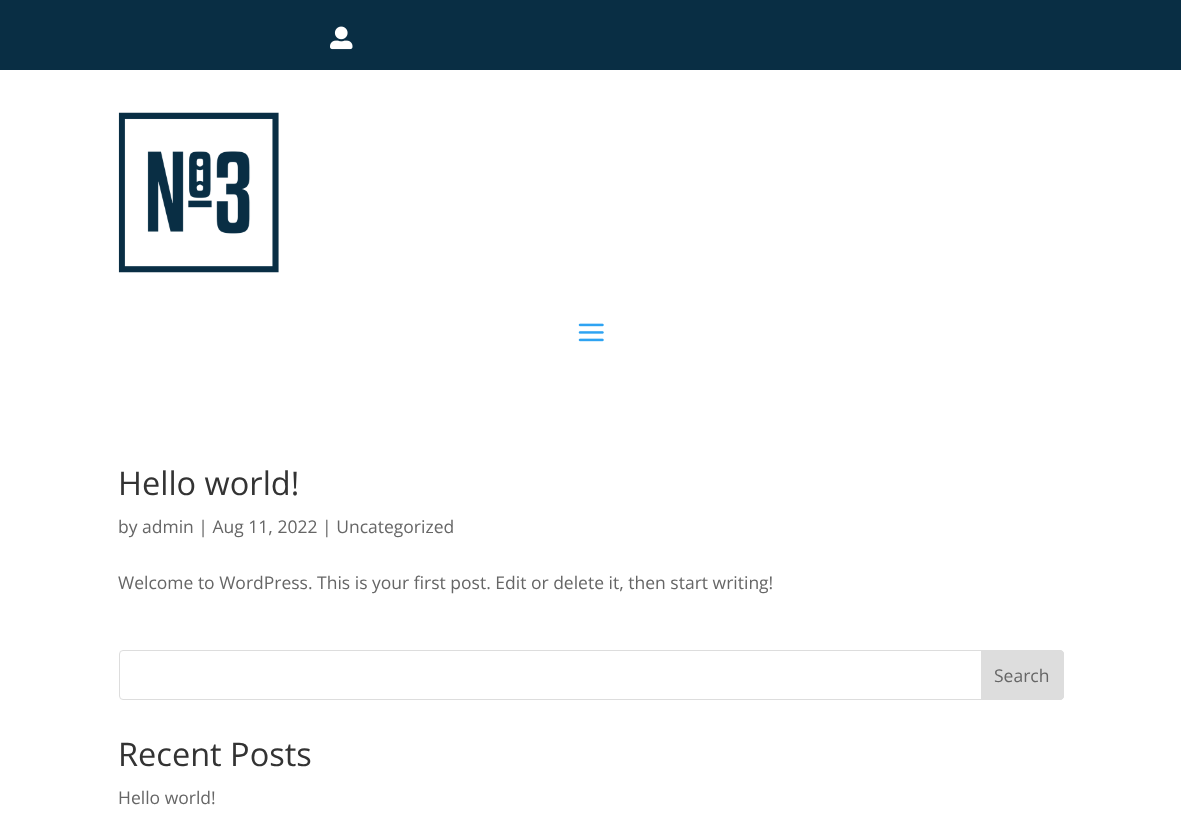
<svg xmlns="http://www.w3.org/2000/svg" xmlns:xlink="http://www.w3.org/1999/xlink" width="1181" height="816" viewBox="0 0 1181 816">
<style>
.cls-1{font:32.5px Open Sans;fill:#333333}
.cls-2{font:17.5px Open Sans;fill:#666666}
</style>
<rect width="100%" height="100%" fill="#ffffff"/>
<rect fill="#092e44" x="0" y="0" width="1181" height="70"/>
<image xlink:href="image0.png" x="330" y="26" width="23" height="24"/>
<image xlink:href="image1.png" x="118" y="112" width="161" height="161"/>
<image xlink:href="image2.png" x="578" y="323" width="26" height="19"/>
<rect fill="none" stroke="#dddddd" x="119.5" y="650.5" width="944" height="49" rx="3.5"/>
<path fill="#dddddd" stroke="#dddddd" d="M981.5 650.5H1060C1062 650.5 1063.5 652 1063.5 654V696C1063.5 698 1062 699.5 1060 699.5H981.5Z"/>
<text class="cls-1" x="118" y="495">Hello world!</text>
<text class="cls-2" x="118" y="533">by admin | Aug 11, 2022 | Uncategorized</text>
<text class="cls-2" x="118" y="589">Welcome to WordPress. This is your first post. Edit or delete it, then start writing!</text>
<text class="cls-2" x="994" y="682">Search</text>
<text class="cls-1" x="118" y="766">Recent Posts</text>
<text class="cls-2" x="118" y="804">Hello world!</text>
</svg>
